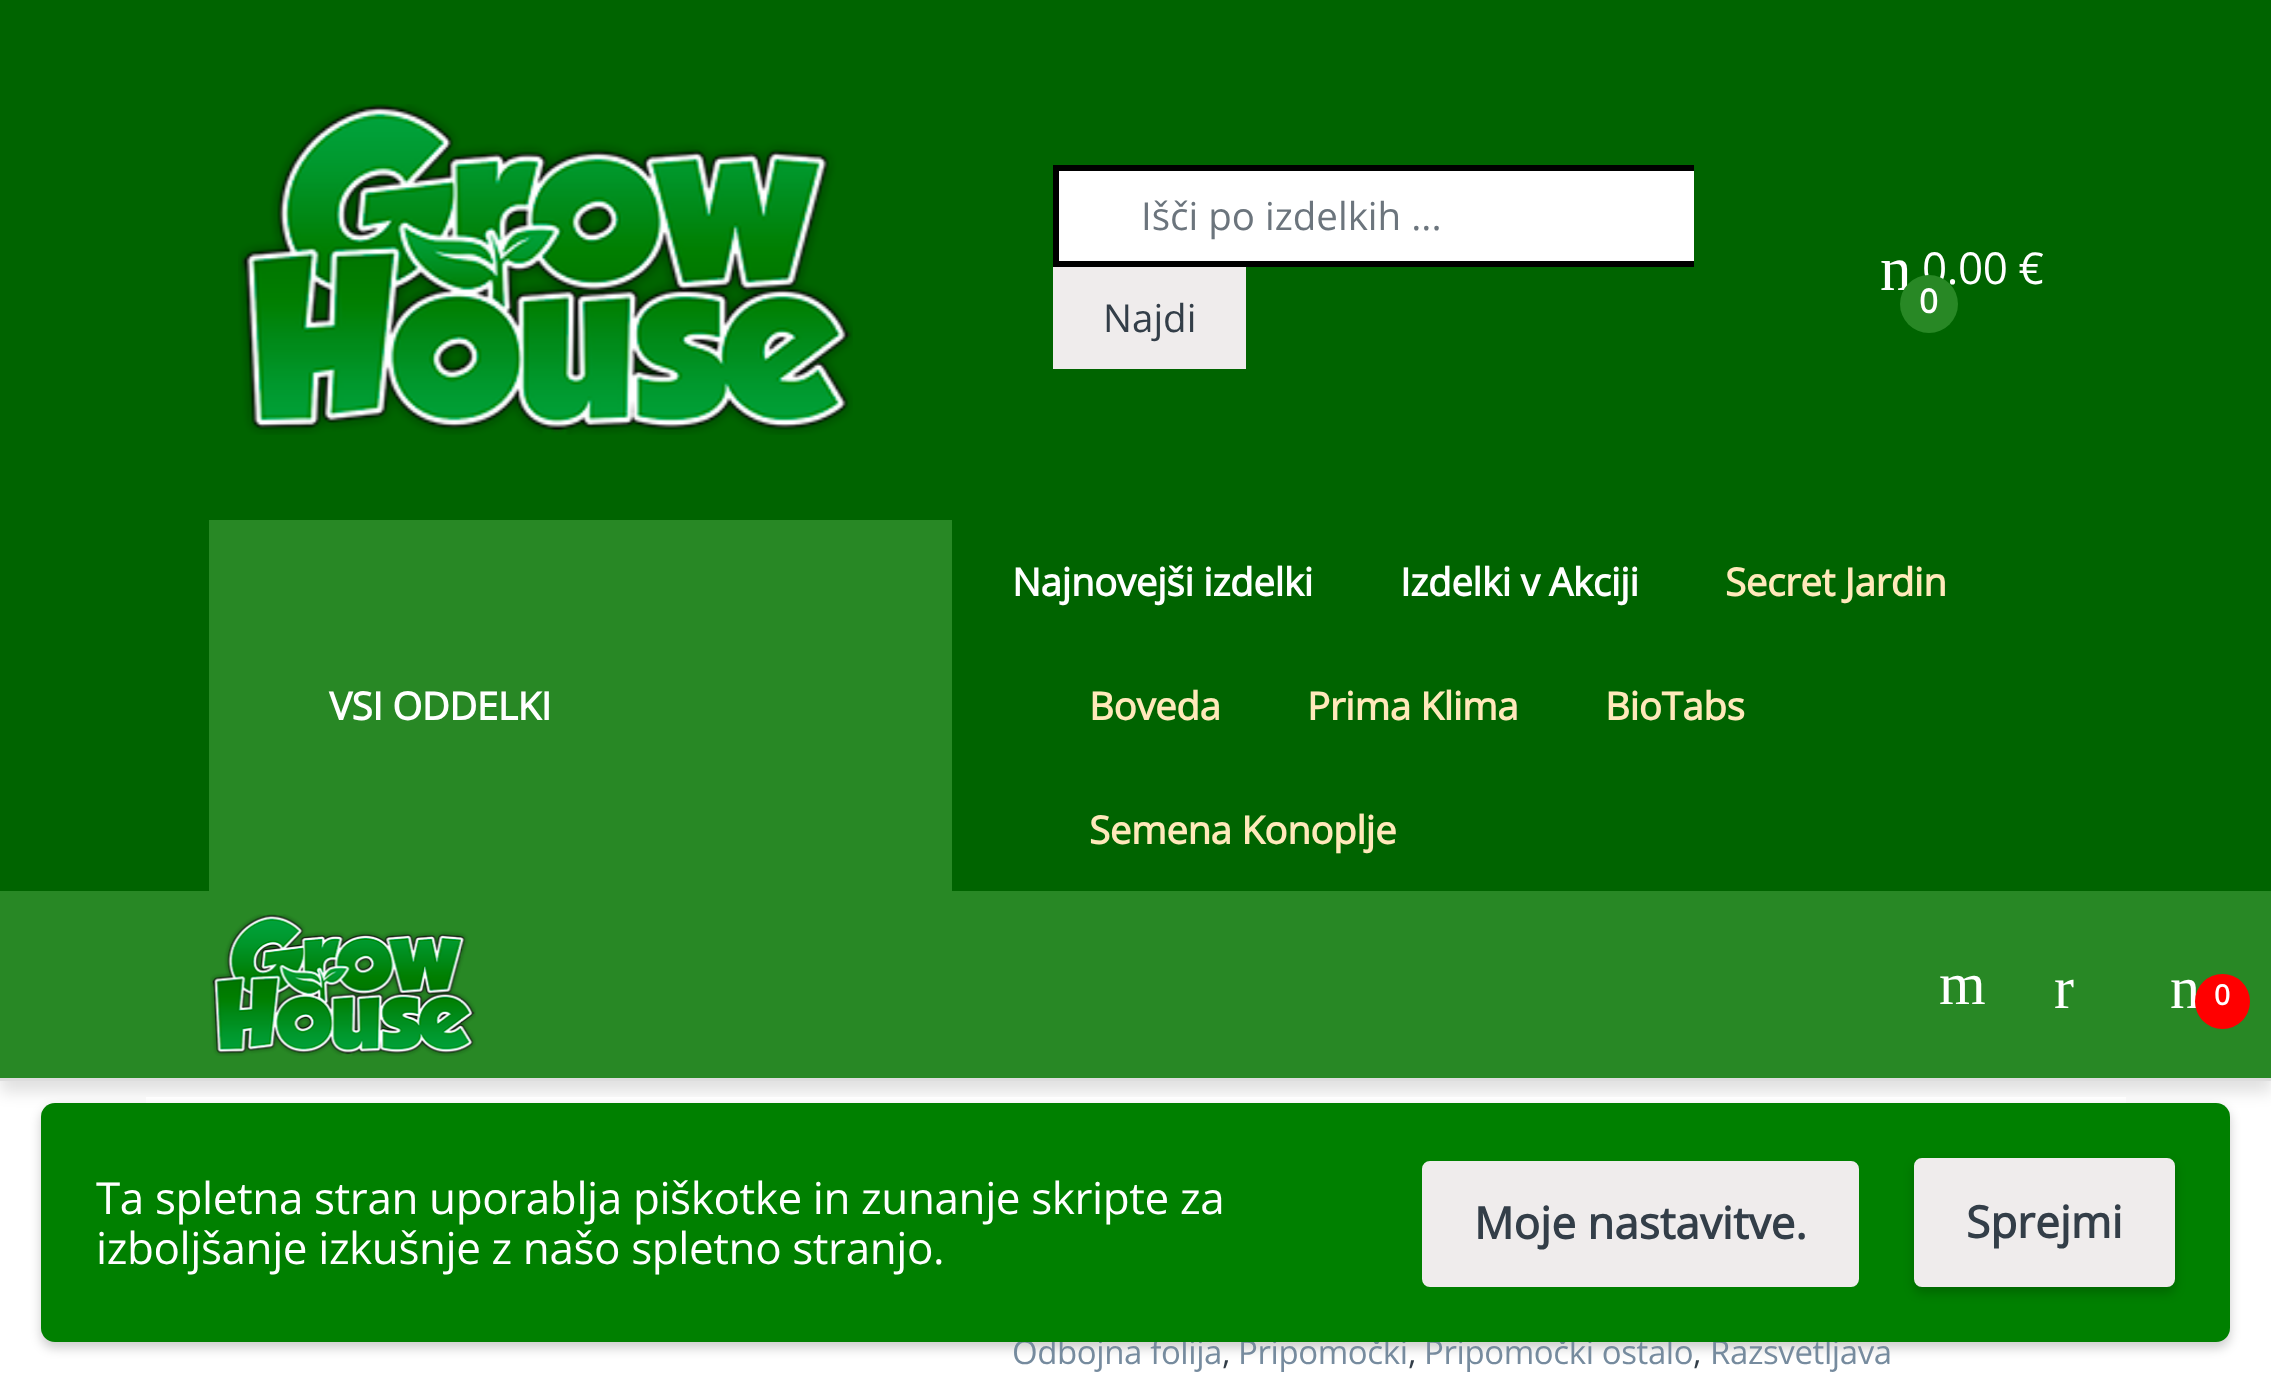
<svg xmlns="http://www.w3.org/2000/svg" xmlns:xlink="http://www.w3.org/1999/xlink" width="2271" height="1383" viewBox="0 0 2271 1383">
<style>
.cls-1{font:38.5px Open Sans;fill:#6c757d}
.cls-2{font:38.5px Open Sans;fill:#333e48}
.cls-3{font:63px Liberation Serif;letter-spacing:-0.4px;fill:#ffffff}
.cls-4{font:44px Open Sans;letter-spacing:-0.4px;fill:#ffffff}
.cls-5{font:bold 33px Open Sans;letter-spacing:-0.4px;fill:#ffffff}
.cls-6{font:bold 38.5px Open Sans;letter-spacing:-0.4px;fill:#ffffff}
.cls-7{font:bold 38.5px Open Sans;letter-spacing:-0.4px;fill:#ffe9ba}
.cls-8{font:60px Liberation Serif;letter-spacing:-0.4px;fill:#ffffff}
.cls-9{font:bold 28px Open Sans;letter-spacing:-0.4px;fill:#ffffff}
.cls-10{font:33px Open Sans;letter-spacing:-0.4px;fill:#768b9e}
.cls-11{font:33px Open Sans;letter-spacing:-0.4px;fill:#333e48}
.cls-12{font:bold 44px Open Sans;fill:#333e48}
</style>
<rect width="100%" height="100%" fill="#ffffff"/>
<rect fill="#000000" fill-opacity="0.12" filter="blur(8px)" x="0" y="11" width="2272" height="1081"/>
<rect fill="#006400" x="0" y="0" width="2271" height="891"/>
<rect fill="#dddddd" x="0" y="1078" width="2271" height="3"/>
<image xlink:href="image0.png" x="238" y="104" width="615" height="331"/>
<rect fill="#ffffff" x="1059" y="171" width="635" height="90"/>
<rect fill="#000000" x="1053" y="165" width="641" height="6"/>
<rect fill="#000000" x="1053" y="261" width="641" height="6"/>
<rect fill="#000000" x="1053" y="165" width="6" height="102"/>
<rect fill="#efecec" x="1053" y="267" width="193" height="102"/>
<rect fill="#288825" x="209" y="520" width="743" height="371"/>
<rect fill="#288825" x="0" y="891" width="2271" height="187"/>
<image xlink:href="image1.png" x="210" y="914" width="266" height="142"/>
<rect fill="#ffffff" x="146" y="1097" width="1980" height="6"/>
<rect fill="#000000" fill-opacity="0.2" filter="blur(5.5px)" x="41" y="1108" width="2189" height="240" rx="14"/>
<text class="cls-1" x="1141" y="230">Išči po izdelkih ...</text>
<text class="cls-2" x="1103" y="332">Najdi</text>
<text class="cls-3" x="1880" y="290">n</text>
<text class="cls-4" x="1922" y="284">0.00 €</text>
<circle fill="#288825" cx="1929" cy="304" r="29"/>
<text class="cls-5" x="1919" y="313">0</text>
<text class="cls-6" x="329" y="720">VSI ODDELKI</text>
<text class="cls-6" x="1012" y="596">Najnovejši izdelki</text>
<text class="cls-6" x="1400" y="596">Izdelki v Akciji</text>
<text class="cls-7" x="1725" y="596">Secret Jardin</text>
<text class="cls-7" x="1089" y="720">Boveda</text>
<text class="cls-7" x="1307" y="720">Prima Klima</text>
<text class="cls-7" x="1605" y="720">BioTabs</text>
<text class="cls-7" x="1089" y="844">Semena Konoplje</text>
<text class="cls-8" x="1939" y="1004">m</text>
<text class="cls-8" x="2054" y="1008">r</text>
<text class="cls-8" x="2170" y="1008">n</text>
<circle fill="#ff0000" cx="2222.5" cy="1001.5" r="27.5"/>
<text class="cls-9" x="2214" y="1005">0</text>
<text class="cls-10" x="1012" y="1364">Odbojna folija</text>
<text class="cls-11" x="1222" y="1364">,</text>
<text class="cls-10" x="1238" y="1364">Pripomočki</text>
<text class="cls-11" x="1408" y="1364">,</text>
<text class="cls-10" x="1424" y="1364">Pripomočki ostalo</text>
<text class="cls-11" x="1693" y="1364">,</text>
<text class="cls-10" x="1710" y="1364">Razsvetljava</text>
<rect fill="#008000" x="41" y="1103" width="2189" height="239" rx="14"/>
<text class="cls-4"><tspan x="96" y="1214">Ta spletna stran uporablja piškotke in zunanje skripte za</tspan><tspan x="96" y="1264">izboljšanje izkušnje z našo spletno stranjo.</tspan></text>
<rect fill="#efecec" stroke="#efecec" stroke-width="3" x="1423.5" y="1162.5" width="434" height="123" rx="6.5"/>
<text class="cls-12" x="1474" y="1239">Moje nastavitve.</text>
<rect fill="#000000" fill-opacity="0.2" filter="blur(5.5px)" x="1914" y="1163" width="261" height="130" rx="8"/>
<rect fill="#efecec" stroke="#efecec" stroke-width="3" x="1915.5" y="1159.5" width="258" height="126" rx="6.5"/>
<text class="cls-12" x="1966" y="1238">Sprejmi</text>
</svg>
